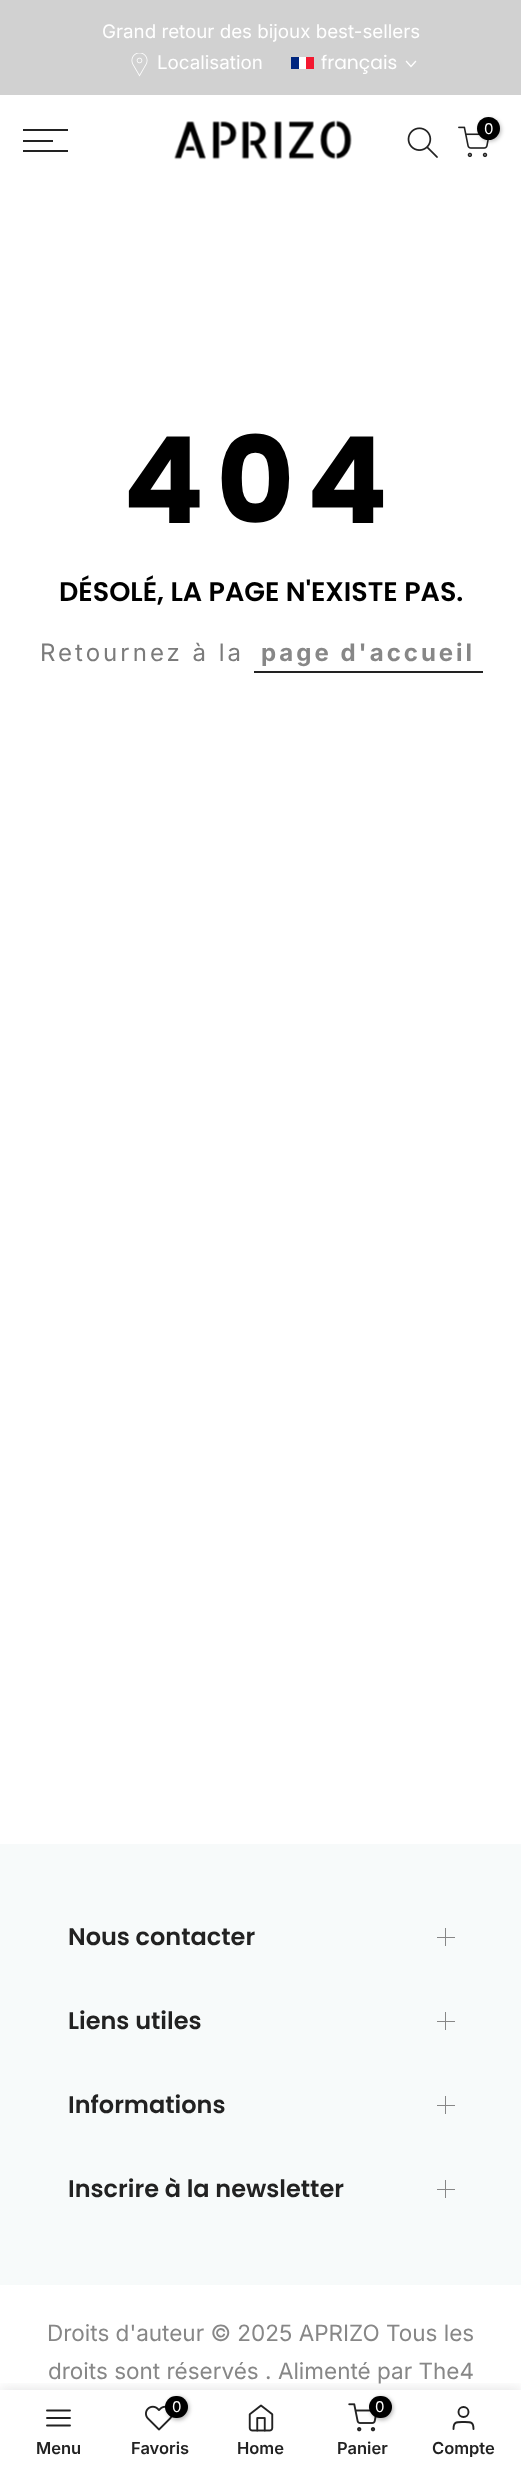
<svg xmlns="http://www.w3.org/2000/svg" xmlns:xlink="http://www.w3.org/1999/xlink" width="521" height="2472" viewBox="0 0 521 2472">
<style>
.cls-1{font:18.75px Inter;fill:#ffffff}
.cls-2{font:18.75px Poppins;fill:#ffffff}
.cls-3{font:15px Inter;fill:#ffffff}
.cls-4{font:bold 120px Poppins;letter-spacing:12px;fill:#000000}
.cls-5{font:600 27px Poppins;fill:#000000}
.cls-6{font:24px Inter;letter-spacing:3px;fill:#7b7b7b}
.cls-7{font:bold 24px Inter;letter-spacing:3px;fill:#878787}
.cls-8{font:600 24px Poppins;fill:#222222}
.cls-9{font:22.5px Inter;fill:#878787}
.cls-10{font:600 16.5px Inter;fill:#222222}
</style>
<defs>
<clipPath id="clip1"><rect x="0" y="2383" width="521" height="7"/></clipPath>
<clipPath id="clip2"><rect x="428" y="2441" width="72" height="16"/></clipPath>
</defs>
<rect width="100%" height="100%" fill="#ffffff"/>
<rect fill="#d1d1d1" x="0" y="0" width="521" height="95"/>
<image xlink:href="image0.png" x="131" y="53" width="17" height="24"/>
<rect fill="#ffffff" x="299" y="57" width="7" height="12"/>
<rect fill="#00267f" x="291" y="57" width="8" height="12"/>
<rect fill="#f31830" x="306" y="57" width="8" height="12"/>
<path fill="none" stroke="#ffffff" stroke-width="1.3" stroke-linecap="square" d="M415.5 61.5L411 66.5L406.5 61.5"/>
<rect fill="#222222" x="23" y="129" width="45" height="2"/>
<rect fill="#222222" x="23" y="140" width="30" height="2"/>
<rect fill="#222222" x="23" y="150" width="45" height="2"/>
<image xlink:href="image1.png" x="174" y="120" width="178" height="40"/>
<image xlink:href="image2.png" x="407" y="127" width="31" height="31"/>
<image xlink:href="image3.png" x="458" y="126" width="31" height="32"/>
<rect fill="#000000" fill-opacity="0.3" filter="blur(2px)" x="479" y="119" width="22" height="22" rx="11"/>
<circle fill="#000000" cx="488.5" cy="128.5" r="11.5"/>
<rect fill="#222222" x="254" y="671" width="229" height="2"/>
<rect fill="#f7fafa" x="0" y="1844" width="521" height="441"/>
<rect fill="#878787" x="445" y="1928" width="1" height="18"/>
<rect fill="#878787" x="437" y="1937" width="18" height="1"/>
<rect fill="#878787" x="445" y="2012" width="1" height="18"/>
<rect fill="#878787" x="437" y="2021" width="18" height="1"/>
<rect fill="#878787" x="445" y="2096" width="1" height="18"/>
<rect fill="#878787" x="437" y="2105" width="18" height="1"/>
<rect fill="#878787" x="445" y="2180" width="1" height="18"/>
<rect fill="#878787" x="437" y="2189" width="18" height="1"/>
<g clip-path="url(#clip1)">
<rect fill="#000000" fill-opacity="0.12" filter="blur(7px)" x="0" y="2390" width="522" height="82"/>
</g>
<path fill="none" stroke="#222222" stroke-width="1.9" stroke-linecap="round" stroke-linejoin="round" d="M47 2418H70M47 2410.5H70M47 2425.5H70"/>
<image xlink:href="image4.png" x="145" y="2405" width="28" height="26"/>
<rect fill="#000000" fill-opacity="0.3" filter="blur(2px)" x="167" y="2397" width="22" height="23" rx="11"/>
<rect fill="#000000" x="165" y="2396" width="23" height="22" rx="11"/>
<image xlink:href="image5.png" x="248" y="2404" width="26" height="28"/>
<image xlink:href="image6.png" x="348" y="2403" width="29" height="29"/>
<rect fill="#000000" fill-opacity="0.3" filter="blur(2px)" x="371" y="2397" width="22" height="23" rx="11"/>
<rect fill="#000000" x="369" y="2396" width="23" height="22" rx="11"/>
<circle fill="none" stroke="#222222" stroke-width="1.9" cx="463.5" cy="2412" r="5"/>
<path fill="none" stroke="#222222" stroke-width="1.9" stroke-linecap="round" stroke-linejoin="round" d="M473.5 2429C473.5 2421.5 470.5 2422 463.5 2422C456.5 2422 453.5 2421.5 453.5 2429"/>
<text class="cls-1" x="102" y="38">Grand retour des bijoux best-sellers</text>
<text class="cls-1" x="157" y="69">Localisation</text>
<text class="cls-2" x="321" y="69">français</text>
<text class="cls-3" x="484" y="134">0</text>
<text class="cls-4" x="123" y="523">404</text>
<text class="cls-5" x="59" y="601">DÉSOLÉ, LA PAGE N'EXISTE PAS.</text>
<text class="cls-6" x="40" y="661">Retournez à la</text>
<text class="cls-7" x="261" y="661">page d'accueil</text>
<text class="cls-8" x="68" y="1945">Nous contacter</text>
<text class="cls-8" x="68" y="2029">Liens utiles</text>
<text class="cls-8" x="68" y="2113">Informations</text>
<text class="cls-8" x="68" y="2197">Inscrire à la newsletter</text>
<text class="cls-9" x="47" y="2341">Droits d'auteur © 2025 APRIZO Tous les</text>
<text class="cls-9" x="48" y="2379">droits sont réservés . Alimenté par The4</text>
<text class="cls-10" x="36" y="2454">Menu</text>
<text class="cls-3" x="172" y="2412">0</text>
<text class="cls-10" x="131" y="2454">Favoris</text>
<text class="cls-10" x="237" y="2454">Home</text>
<text class="cls-3" x="375" y="2412">0</text>
<text class="cls-10" x="337" y="2454">Panier</text>
<g clip-path="url(#clip2)">
<text class="cls-10" x="432" y="2454">Compte</text>
</g>
</svg>
